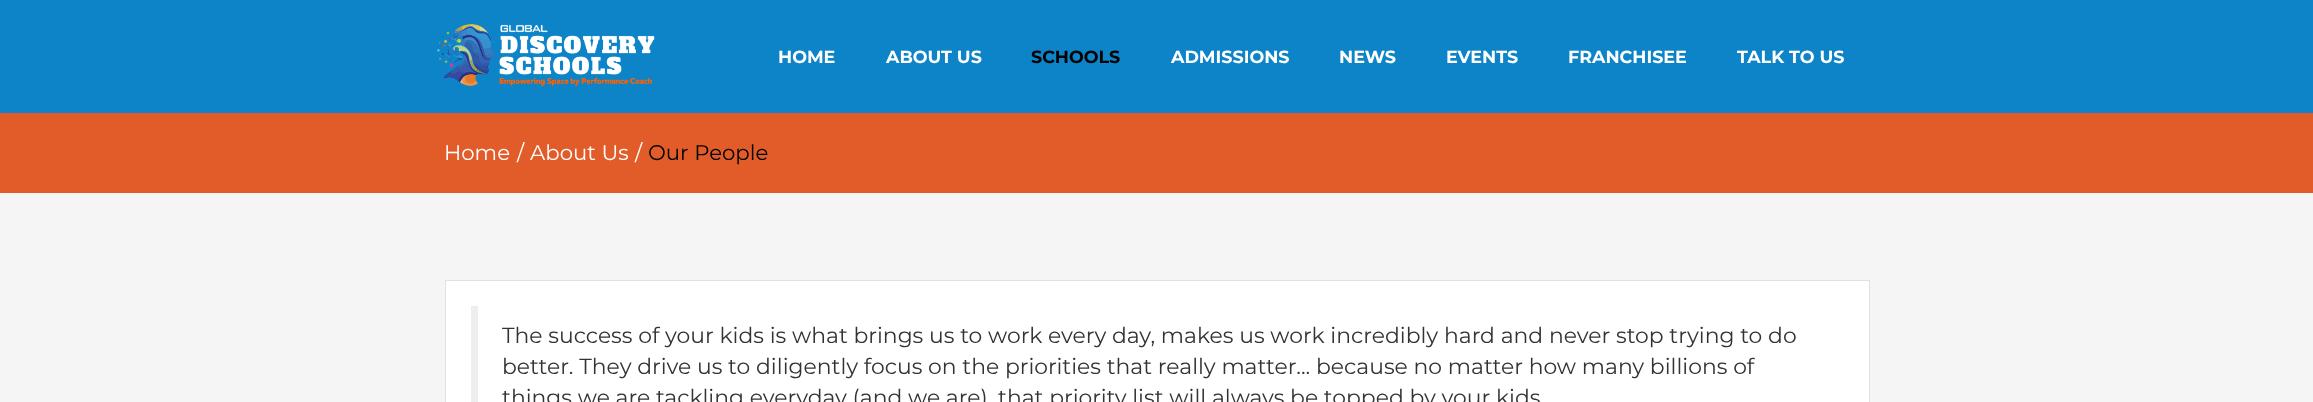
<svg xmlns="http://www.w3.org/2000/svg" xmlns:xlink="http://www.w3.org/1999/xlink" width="2313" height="402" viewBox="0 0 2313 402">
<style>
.cls-1{font:bold 17.5px Montserrat;fill:#ffffff}
.cls-2{font:bold 17.5px Montserrat;fill:#000000}
.cls-3{font:21.25px Montserrat;fill:#ffffff}
.cls-4{font:21.25px Montserrat;fill:#000000}
.cls-5{font:21.88px Montserrat;fill:#333333}
</style>
<rect width="100%" height="100%" fill="#e25c29"/>
<rect fill="#0d84c8" x="0" y="0" width="2313" height="113"/>
<image xlink:href="image0.png" x="437" y="24" width="218" height="62"/>
<rect fill="#f5f5f5" x="0" y="193" width="2313" height="209"/>
<rect fill="#ffffff" stroke="#e1e1e1" x="445.5" y="280.5" width="1424" height="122"/>
<rect fill="#eeeeee" x="471" y="306" width="7" height="96"/>
<text class="cls-1" x="778" y="63">HOME</text>
<text class="cls-1" x="886" y="63">ABOUT US</text>
<text class="cls-2" x="1031" y="63">SCHOOLS</text>
<text class="cls-1" x="1171" y="63">ADMISSIONS</text>
<text class="cls-1" x="1339" y="63">NEWS</text>
<text class="cls-1" x="1446" y="63">EVENTS</text>
<text class="cls-1" x="1568" y="63">FRANCHISEE</text>
<text class="cls-1" x="1737" y="63">TALK TO US</text>
<text class="cls-3" x="444" y="160">Home</text>
<text class="cls-3" x="517" y="160">/</text>
<text class="cls-3" x="530" y="160">About Us</text>
<text class="cls-3" x="635" y="160">/</text>
<text class="cls-4" x="648" y="160">Our People</text>
<text class="cls-5"><tspan x="502" y="343">The success of your kids is what brings us to work every day, makes us work incredibly hard and never stop trying to do</tspan><tspan x="502" y="374">better. They drive us to diligently focus on the priorities that really matter... because no matter how many billions of</tspan><tspan x="502" y="405">things we are tackling everyday (and we are), that priority list will always be topped by your kids</tspan></text>
</svg>
